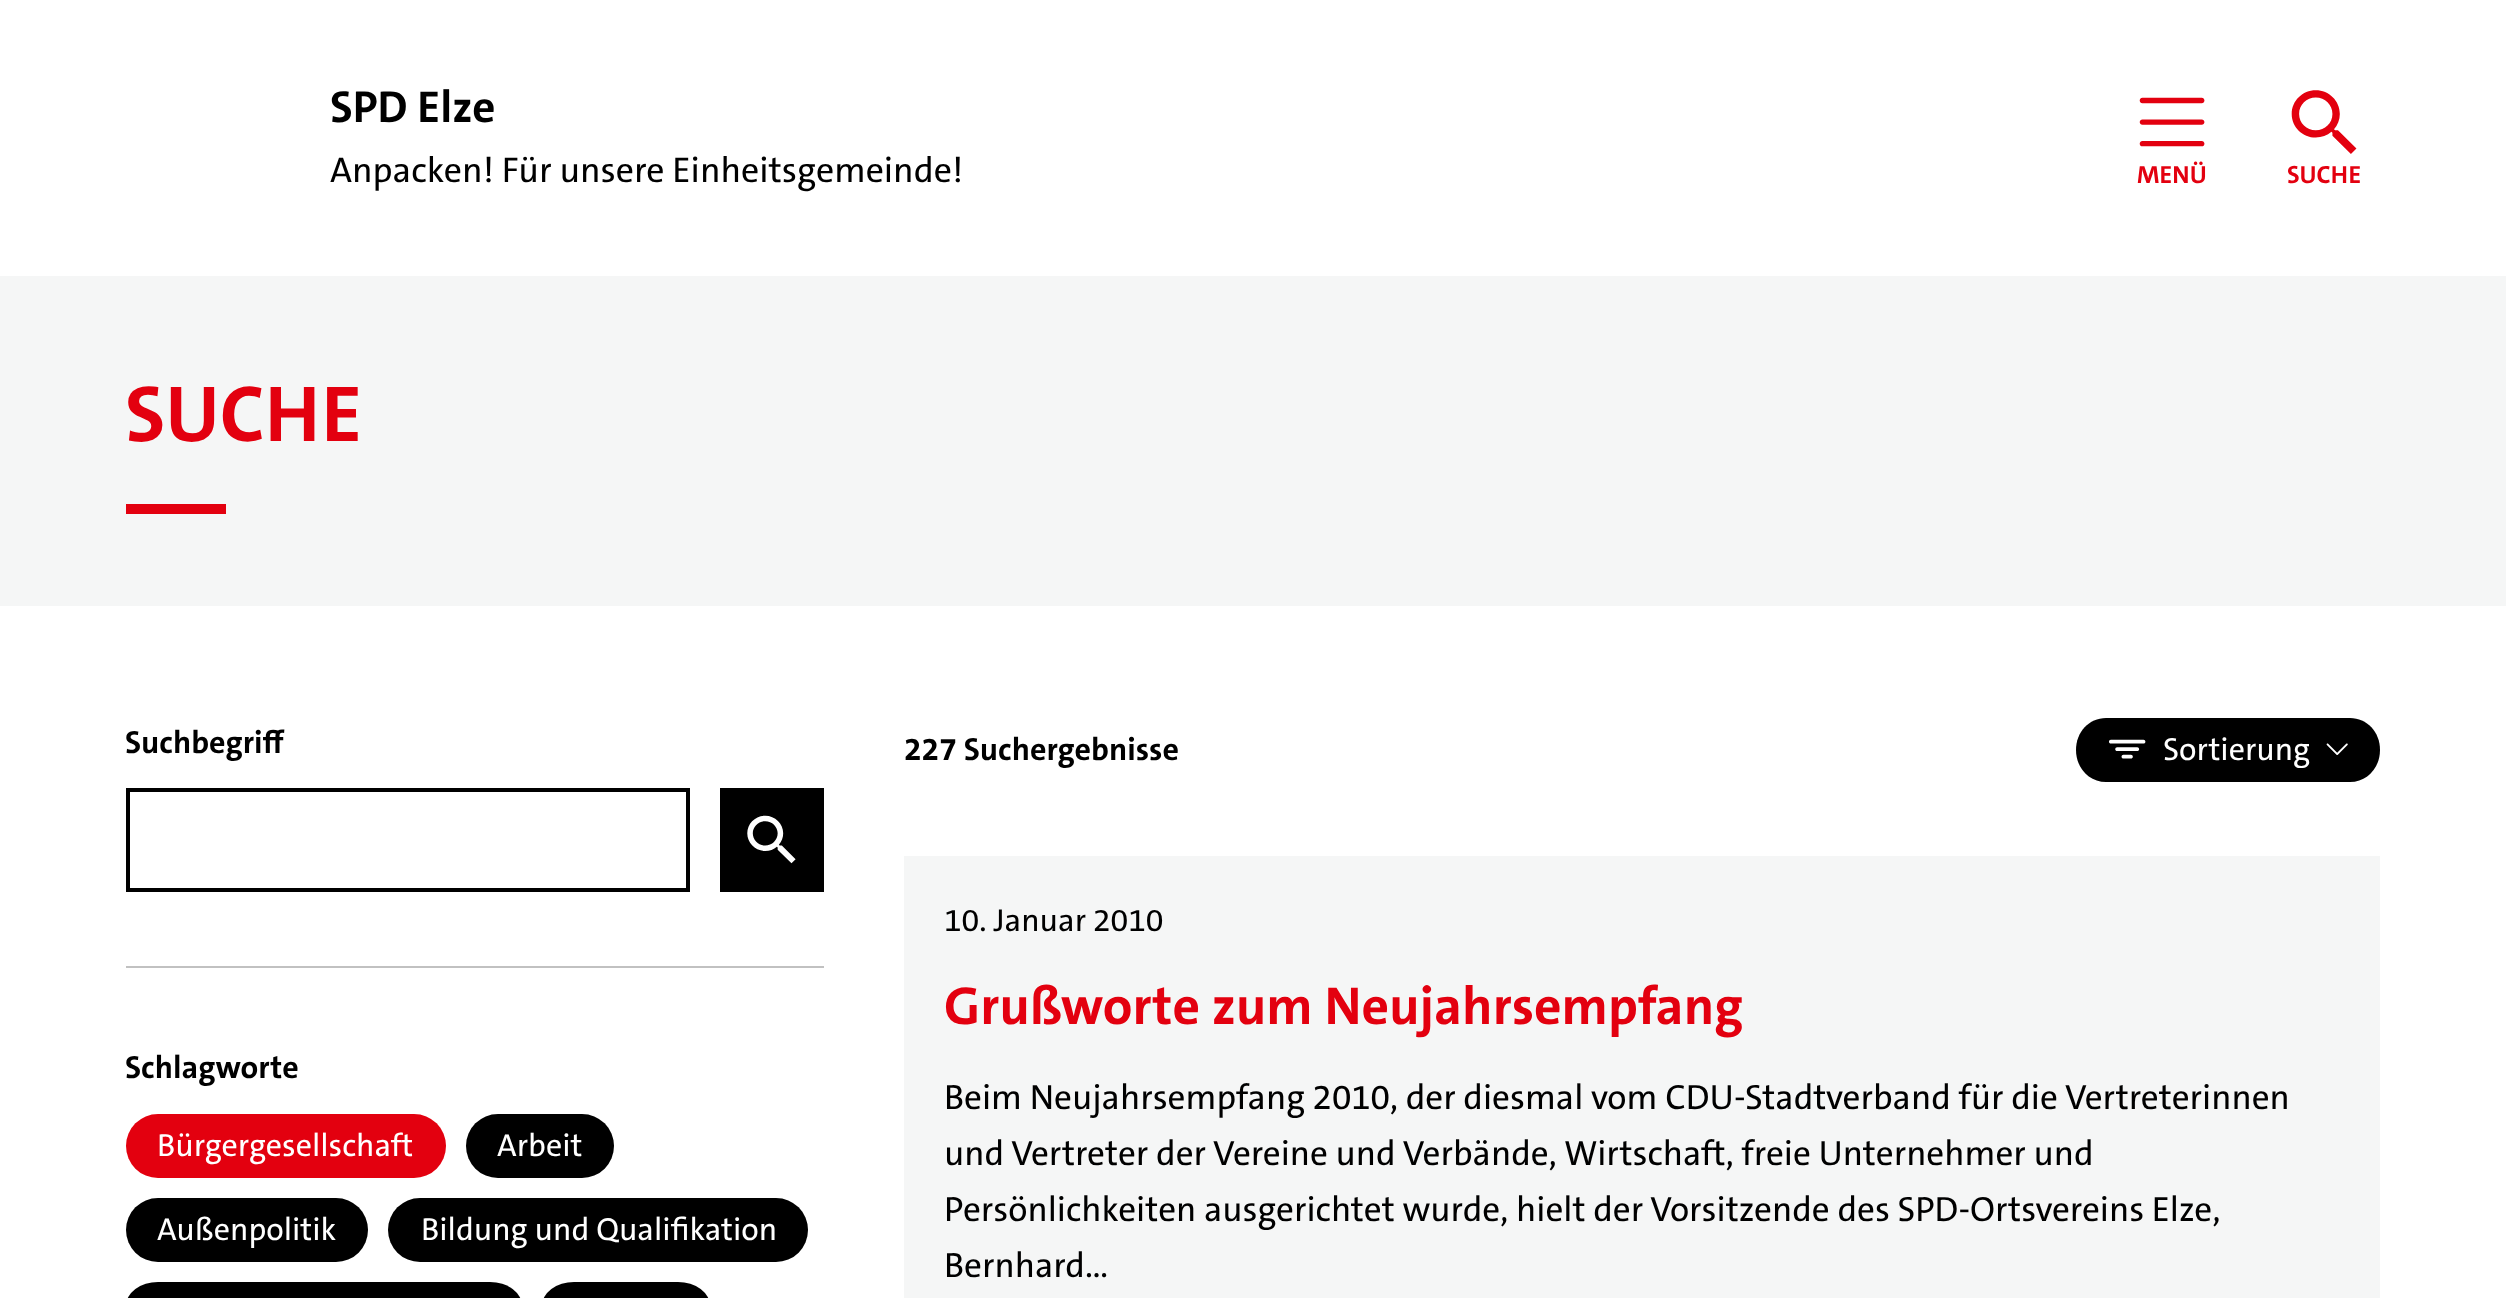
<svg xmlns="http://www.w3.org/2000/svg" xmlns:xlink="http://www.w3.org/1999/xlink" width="2506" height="1298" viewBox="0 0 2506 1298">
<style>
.cls-1{font:bold 45px 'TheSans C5';fill:#000000}
.cls-2{font:500 35.8px 'TheSans C5';fill:#000000}
.cls-3{font:bold 25px 'TheSans C5';fill:#e3000f}
.cls-4{font:bold 80px 'TheSans C5';fill:#e3000f}
.cls-5{font:bold 32px 'TheSans C5';fill:#000000}
.cls-6{font:500 32px 'TheSans C5';fill:#ffffff}
.cls-7{font:500 32px 'TheSans C5';fill:#000000}
.cls-8{font:bold 53.6px 'TheSans C5';fill:#e3000f}
.cls-9{font:500 35.2px 'TheSans C5';fill:#000000}
</style>
<defs>
<clipPath id="clip1"><rect x="2164" y="730" width="146" height="38"/></clipPath>
</defs>
<rect width="100%" height="100%" fill="#ffffff"/>
<image xlink:href="image0.png" x="2139" y="97" width="66" height="50"/>
<image xlink:href="image1.png" x="2291" y="90" width="66" height="64"/>
<rect fill="#f5f6f6" x="0" y="276" width="2506" height="330"/>
<rect fill="#e3000f" x="126" y="504" width="100" height="10"/>
<rect fill="#c1c1c1" x="126" y="966" width="698" height="2"/>
<rect fill="none" stroke="#000000" stroke-width="4" x="128" y="790" width="560" height="100"/>
<rect fill="#000000" x="720" y="788" width="104" height="104"/>
<image xlink:href="image2.png" x="747" y="815" width="49" height="49"/>
<rect fill="#e3000f" x="126" y="1114" width="320" height="64" rx="32"/>
<rect fill="#000000" x="466" y="1114" width="148" height="64" rx="32"/>
<rect fill="#000000" x="126" y="1198" width="242" height="64" rx="32"/>
<rect fill="#000000" x="388" y="1198" width="420" height="64" rx="32"/>
<rect fill="#000000" x="126" y="1282" width="396" height="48" rx="32"/>
<rect fill="#000000" x="542" y="1282" width="168" height="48" rx="32"/>
<path fill="#000000" d="M2106 718H2350C2367 718 2380 732 2380 750C2380 768 2367 782 2350 782H2106C2089 782 2076 768 2076 750C2076 732 2089 718 2106 718Z"/>
<image xlink:href="image3.png" x="2109" y="739" width="37" height="20"/>
<image xlink:href="image4.png" x="2326" y="743" width="22" height="12"/>
<rect fill="#f5f6f6" x="904" y="856" width="1476" height="442"/>
<text class="cls-1" x="330" y="122">SPD Elze</text>
<text class="cls-2" x="330" y="182">Anpacken! Für unsere Einheitsgemeinde!</text>
<text class="cls-3" x="2137" y="183">MENÜ</text>
<text class="cls-3" x="2287" y="183">SUCHE</text>
<text class="cls-4" x="125" y="441">SUCHE</text>
<text class="cls-5" x="125" y="753">Suchbegriff</text>
<text class="cls-5" x="125" y="1078">Schlagworte</text>
<text class="cls-6" x="157" y="1156">Bürgergesellschaft</text>
<text class="cls-6" x="497" y="1156">Arbeit</text>
<text class="cls-6" x="157" y="1240">Außenpolitik</text>
<text class="cls-6" x="421" y="1240">Bildung und Qualifikation</text>
<text class="cls-5" x="904" y="760">227 Suchergebnisse</text>
<g clip-path="url(#clip1)">
<text class="cls-6" x="2163" y="760">Sortierung</text>
</g>
<text class="cls-7" x="944" y="931">10. Januar 2010</text>
<text class="cls-8" x="944" y="1024">Grußworte zum Neujahrsempfang</text>
<text class="cls-9"><tspan x="944" y="1109">Beim Neujahrsempfang 2010, der diesmal vom CDU-Stadtverband für die Vertreterinnen</tspan><tspan x="944" y="1165">und Vertreter der Vereine und Verbände, Wirtschaft, freie Unternehmer und</tspan><tspan x="944" y="1221">Persönlichkeiten ausgerichtet wurde, hielt der Vorsitzende des SPD-Ortsvereins Elze,</tspan><tspan x="944" y="1277">Bernhard...</tspan></text>
</svg>
